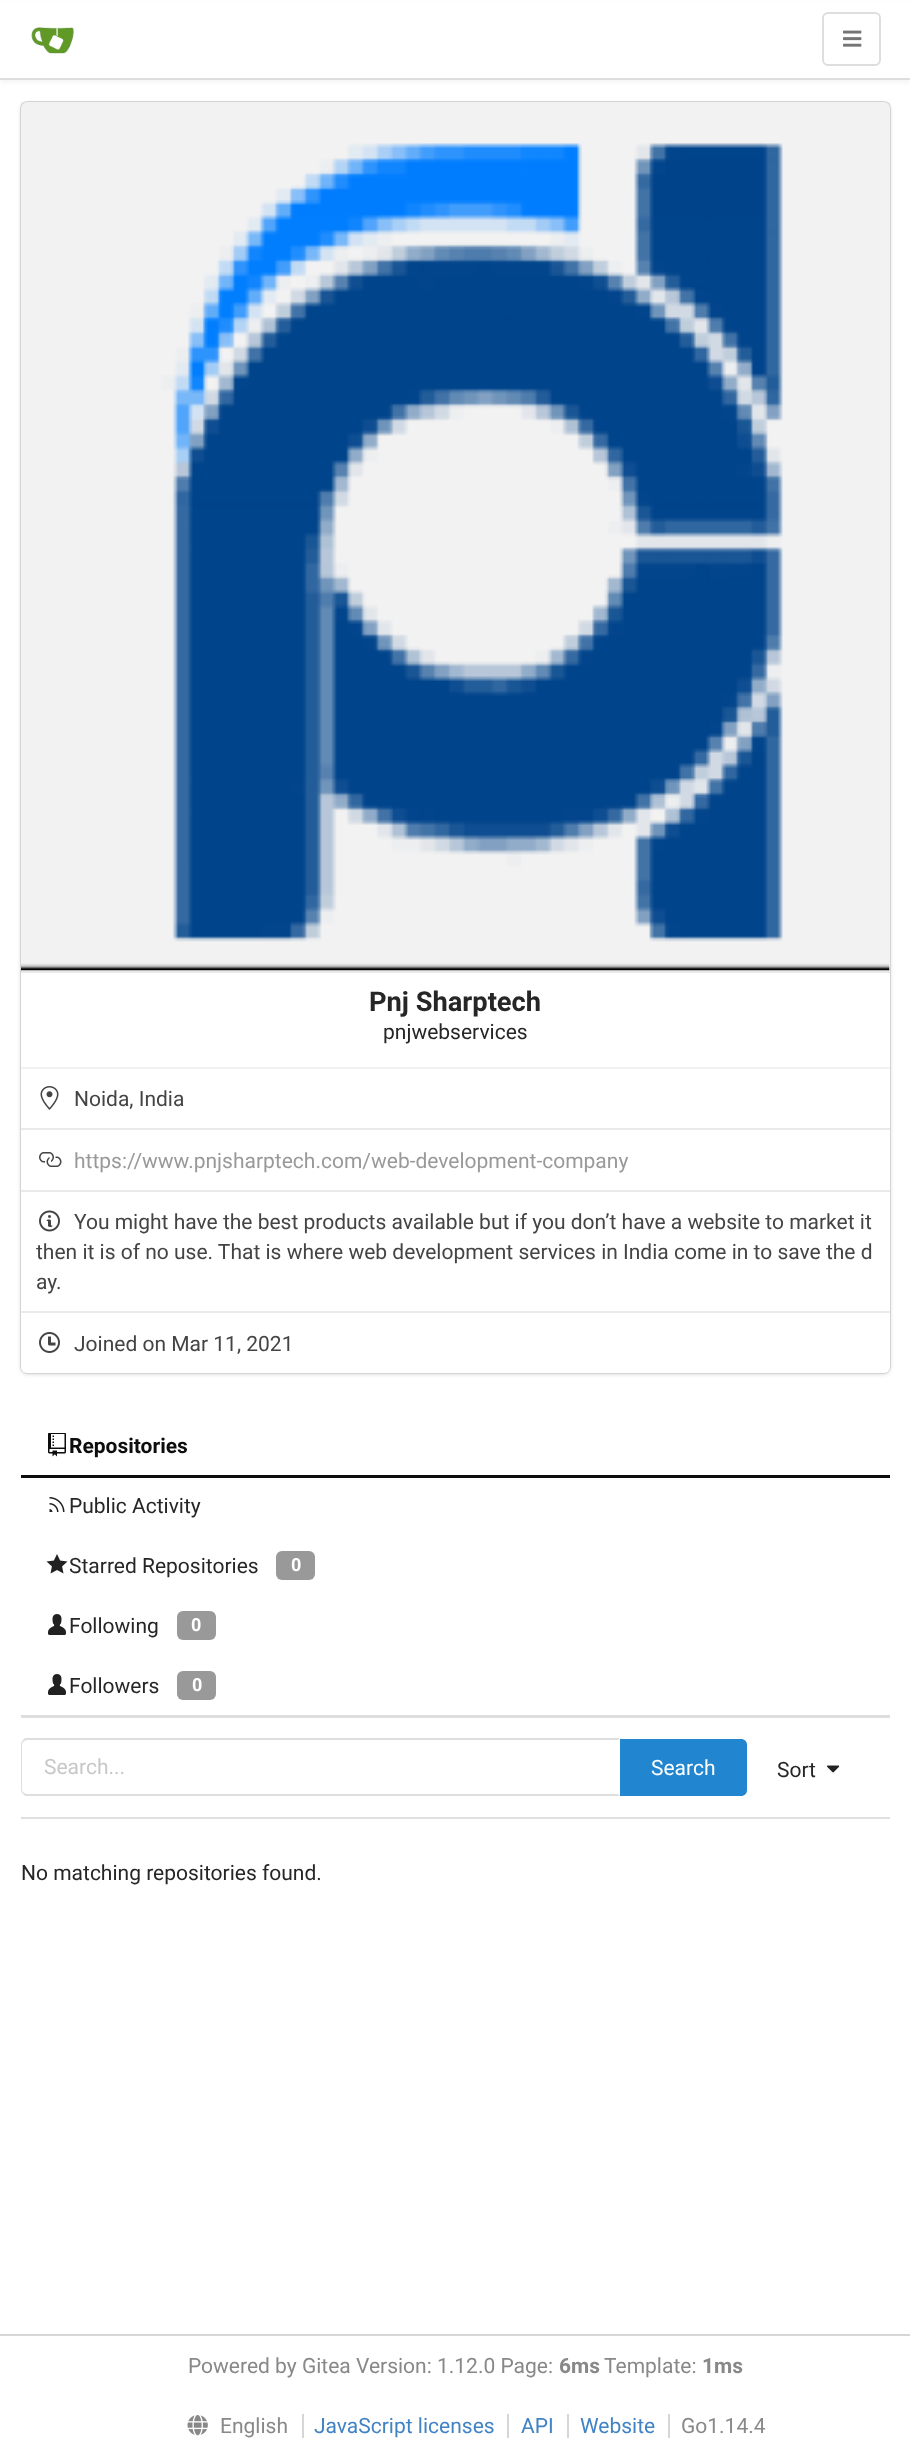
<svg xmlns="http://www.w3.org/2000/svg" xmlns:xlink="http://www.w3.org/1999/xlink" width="910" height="2455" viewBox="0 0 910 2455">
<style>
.cls-1{font:bold 27.25px Roboto;fill:#262626}
.cls-2{font:21px Roboto;fill:#262626}
.cls-3{font:21px Roboto;fill:#444444}
.cls-4{font:21px Roboto;fill:#999999}
.cls-5{font:bold 21px Roboto;fill:#0d0d0d}
.cls-6{font:bold 18px Roboto;fill:#ffffff}
.cls-7{font:21px Roboto;fill:#c7c7c7}
.cls-8{font:21px Roboto;fill:#ffffff}
.cls-9{font:21px Roboto;fill:#888888}
.cls-10{font:bold 21px Roboto;fill:#888888}
.cls-11{font:21px Roboto;fill:#4183c4}
</style>
<rect width="100%" height="100%" fill="#ffffff"/>
<rect fill="#000000" fill-opacity="0.04" filter="blur(2px)" x="0" y="3" width="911" height="80"/>
<rect fill="#ffffff" x="0" y="2" width="910" height="76"/>
<rect fill="#dddddd" x="0" y="78" width="910" height="2"/>
<image xlink:href="image0.png" x="31" y="27" width="43" height="27"/>
<rect fill="none" stroke="#dedede" stroke-width="2" x="823" y="13" width="57" height="52" rx="5"/>
<image xlink:href="image1.png" x="843" y="30" width="19" height="17"/>
<rect fill="none" stroke="#d4d4d5" stroke-width="2" x="21" y="102" width="869" height="1271" rx="7"/>
<rect fill="#d4d4d5" filter="blur(2px)" x="21" y="104" width="869" height="1270" rx="6"/>
<rect fill="#ffffff" x="21" y="102" width="869" height="1271" rx="6"/>
<rect fill="#000000" fill-opacity="0.05" x="21" y="102" width="869" height="869"/>
<image xlink:href="image2.png" x="21" y="143" width="869" height="828"/>
<rect fill="#e9e9e9" x="21" y="971" width="869" height="2"/>
<rect fill="#f2f2f2" x="21" y="1067" width="869" height="2"/>
<rect fill="#eaeaea" x="21" y="1128" width="869" height="2"/>
<image xlink:href="image3.png" x="40" y="1086" width="19" height="24"/>
<rect fill="#eaeaea" x="21" y="1190" width="869" height="2"/>
<image xlink:href="image4.png" x="39" y="1152" width="23" height="15"/>
<rect fill="#eaeaea" x="21" y="1311" width="869" height="2"/>
<image xlink:href="image5.png" x="39" y="1210" width="21" height="22"/>
<image xlink:href="image6.png" x="39" y="1332" width="21" height="21"/>
<rect fill="#dedede" x="21" y="1715" width="869" height="3"/>
<rect fill="#0d0d0d" x="21" y="1475" width="869" height="3"/>
<image xlink:href="image7.png" x="48" y="1433" width="18" height="24"/>
<image xlink:href="image8.png" x="49" y="1497" width="16" height="15"/>
<image xlink:href="image9.png" x="46" y="1554" width="22" height="20"/>
<rect fill="#999999" x="276" y="1551" width="39" height="29" rx="6"/>
<image xlink:href="image10.png" x="48" y="1614" width="18" height="21"/>
<rect fill="#999999" x="177" y="1611" width="39" height="29" rx="6"/>
<image xlink:href="image10.png" x="48" y="1674" width="18" height="21"/>
<rect fill="#999999" x="177" y="1671" width="39" height="29" rx="6"/>
<path fill="#dedede" d="M27 1740L24 1741L23 1740L25 1738H620L618 1740Z"/>
<path fill="#dedede" d="M620 1796H25L23 1794L24 1793L27 1794H618Z"/>
<path fill="#222426" fill-opacity="0.15" d="M21 1744V1790C21 1791 22 1793 23 1794L24 1793C23 1792 22 1791 22 1790V1744C22 1743 23 1742 24 1741L23 1740C22 1741 21 1743 21 1744Z"/>
<path fill="#2185d0" d="M620 1739H741C744.5 1739 747 1741.5 747 1745V1790C747 1793.5 744.5 1796 741 1796H620Z"/>
<image xlink:href="image11.png" x="827" y="1765" width="13" height="8"/>
<rect fill="#dedede" x="21" y="1817" width="869" height="1"/>
<rect fill="#e1e1e1" x="21" y="1818" width="869" height="1"/>
<rect fill="#d6d6d6" x="0" y="2334" width="910" height="2"/>
<image xlink:href="image12.png" x="187" y="2415" width="21" height="21"/>
<rect fill="#d6d6d6" x="302" y="2414" width="2" height="24"/>
<rect fill="#d6d6d6" x="507" y="2414" width="2" height="24"/>
<rect fill="#d6d6d6" x="567" y="2414" width="2" height="24"/>
<rect fill="#d6d6d6" x="668" y="2414" width="2" height="24"/>
<text class="cls-1" x="369" y="1011">Pnj Sharptech</text>
<text class="cls-2" x="383" y="1039">pnjwebservices</text>
<text class="cls-3" x="74" y="1106">Noida, India</text>
<text class="cls-4" x="74" y="1168">https://www.pnjsharptech.com/web-development-company</text>
<text class="cls-3" x="74" y="1229">You might have the best products available but if you don’t have a website to market it</text>
<text class="cls-3"><tspan x="36" y="1259">then it is of no use. That is where web development services in India come in to save the d</tspan><tspan x="36" y="1289">ay.</tspan></text>
<text class="cls-3" x="74" y="1351">Joined on Mar 11, 2021</text>
<text class="cls-5" x="69" y="1453">Repositories</text>
<text class="cls-2" x="69" y="1513">Public Activity</text>
<text class="cls-2" x="69" y="1573">Starred Repositories</text>
<text class="cls-6" x="291" y="1571">0</text>
<text class="cls-2" x="69" y="1633">Following</text>
<text class="cls-6" x="191" y="1631">0</text>
<text class="cls-2" x="69" y="1693">Followers</text>
<text class="cls-6" x="192" y="1691">0</text>
<text class="cls-7" x="44" y="1774">Search...</text>
<text class="cls-8" x="651" y="1775">Search</text>
<text class="cls-2" x="777" y="1777">Sort</text>
<text class="cls-2" x="21" y="1880">No matching repositories found.</text>
<text class="cls-9" x="188" y="2373">Powered by Gitea Version: 1.12.0 Page:</text>
<text class="cls-10" x="559" y="2373">6ms</text>
<text class="cls-9" x="604" y="2373">Template:</text>
<text class="cls-10" x="702" y="2373">1ms</text>
<text class="cls-9" x="220" y="2433">English</text>
<text class="cls-11" x="314" y="2433">JavaScript licenses</text>
<text class="cls-11" x="521" y="2433">API</text>
<text class="cls-11" x="580" y="2433">Website</text>
<text class="cls-9" x="681" y="2433">Go1.14.4</text>
</svg>
